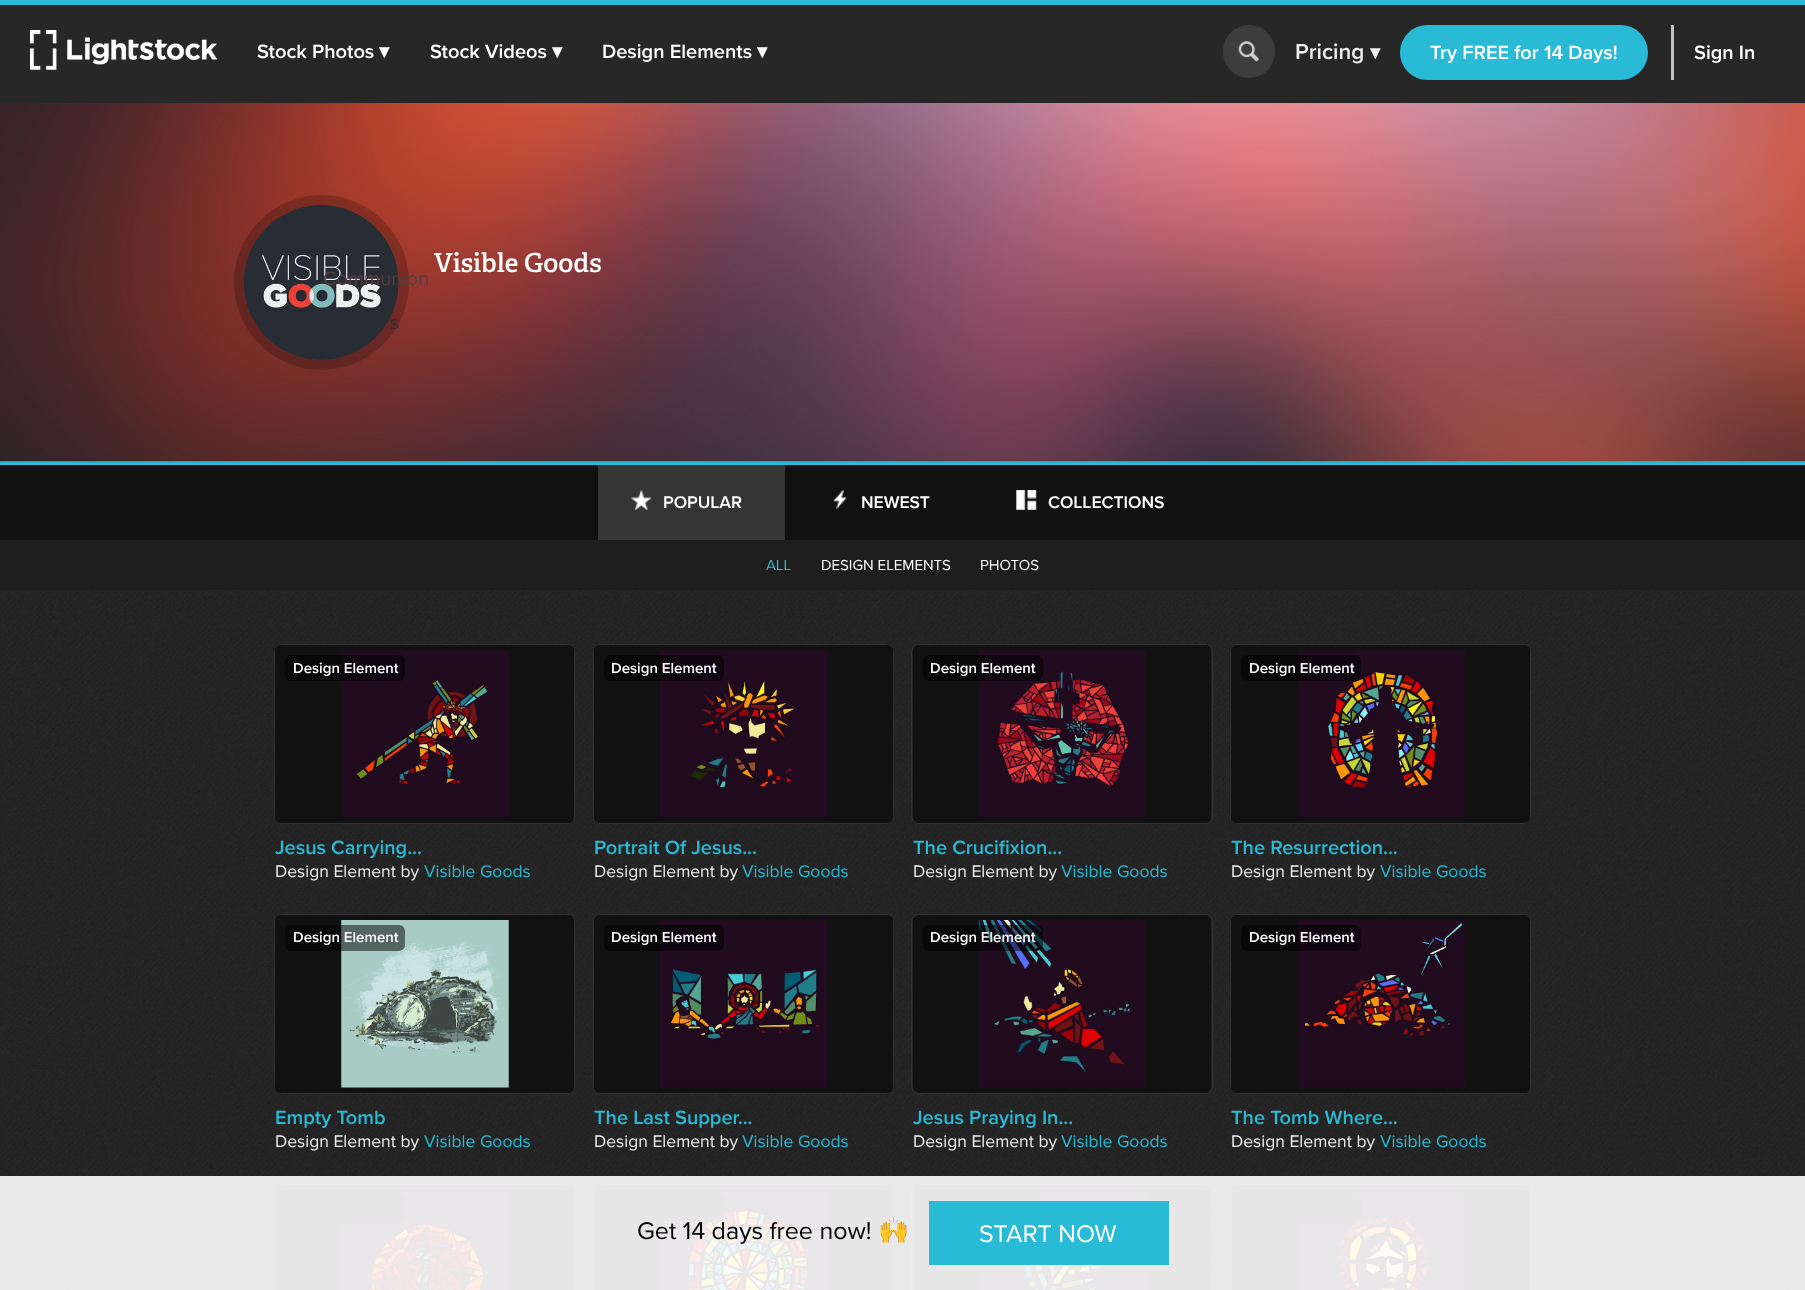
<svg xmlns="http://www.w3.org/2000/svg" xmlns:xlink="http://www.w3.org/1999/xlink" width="1805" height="1290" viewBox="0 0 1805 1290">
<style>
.cls-1{font:600 20px Proxima Nova;fill:#ffffff}
.cls-2{font:bold 20px DejaVu Sans;fill:#ffffff}
.cls-3{font:20px Proxima Nova;fill:#553d40}
.cls-4{font:20px Proxima Nova;fill:#342c32}
.cls-5{font:600 22.5px Proxima Nova;fill:#eeeeee}
.cls-6{font:bold 20px DejaVu Sans;fill:#eeeeee}
.cls-7{font:600 26.25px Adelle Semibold;fill:#ffffff}
.cls-8{font:600 17.5px Proxima Nova;fill:#ffffff}
.cls-9{font:15px Proxima Nova;fill:#29bad5}
.cls-10{font:15px Proxima Nova;fill:#ffffff}
.cls-11{font:600 15px Proxima Nova;fill:#ffffff}
.cls-12{font:600 20px Proxima Nova;fill:#29bad5}
.cls-13{font:17.5px Proxima Nova;fill:#eeeeee}
.cls-14{font:17.5px Proxima Nova;fill:#29bad5}
.cls-15{font:25px Proxima Nova;fill:#000000}
.cls-16{font:25px Noto Color Emoji;fill:#000000}
.cls-17{font:25px Proxima Nova;fill:#ffffff}
</style>
<rect width="100%" height="100%" fill="#242424"/>
<image xlink:href="image0.png" x="1" y="590" width="1804" height="700"/>
<rect fill="#272727" x="0" y="5" width="1805" height="98"/>
<rect fill="#29bad5" x="0" y="0" width="1805" height="5"/>
<image xlink:href="image1.png" x="30" y="30" width="188" height="40"/>
<rect fill="#3d3d3d" x="1223" y="25" width="52" height="53" rx="26"/>
<image xlink:href="image2.png" x="1238" y="41" width="21" height="21"/>
<rect fill="#29bad5" x="1400" y="25" width="248" height="55" rx="27.5"/>
<rect fill="#c3c3c3" x="1671" y="25" width="3" height="55"/>
<rect fill="#29bad5" x="0" y="461" width="1805" height="4"/>
<image xlink:href="image3.png" x="0" y="103" width="1805" height="359"/>
<circle fill="none" stroke="#000000" stroke-opacity="0.2" stroke-width="10" cx="321.5" cy="282.5" r="82.5"/>
<image xlink:href="image4.png" x="243" y="205" width="156" height="155"/>
<rect fill="#111111" x="0" y="465" width="1805" height="75"/>
<rect fill="#353535" x="598" y="465" width="187" height="75"/>
<image xlink:href="image5.png" x="631" y="490" width="21" height="20"/>
<image xlink:href="image6.png" x="833" y="490" width="14" height="19"/>
<image xlink:href="image7.png" x="1016" y="490" width="21" height="20"/>
<rect fill="#1e1e1e" x="0" y="540" width="1805" height="50"/>
<rect fill="none" stroke="#333333" x="274.5" y="644.5" width="300" height="179" rx="7.5"/>
<rect fill="#111111" x="275" y="645" width="299" height="178" rx="6"/>
<image xlink:href="image8.png" x="341" y="650" width="168" height="168"/>
<rect fill="none" stroke="#111111" stroke-width="5" x="277.5" y="647.5" width="294" height="173" rx="3.5"/>
<rect fill="#000000" fill-opacity="0.5" x="285" y="655" width="120" height="26" rx="6"/>
<rect fill="none" stroke="#333333" x="593.5" y="644.5" width="300" height="179" rx="7.5"/>
<rect fill="#111111" x="594" y="645" width="299" height="178" rx="6"/>
<image xlink:href="image9.png" x="660" y="650" width="168" height="168"/>
<rect fill="none" stroke="#111111" stroke-width="5" x="596.5" y="647.5" width="294" height="173" rx="3.5"/>
<rect fill="#000000" fill-opacity="0.5" x="604" y="655" width="120" height="26" rx="6"/>
<rect fill="none" stroke="#333333" x="911.5" y="644.5" width="301" height="179" rx="7.5"/>
<rect fill="#111111" x="913" y="645" width="298" height="178" rx="6"/>
<image xlink:href="image10.png" x="979" y="650" width="167" height="168"/>
<rect fill="none" stroke="#111111" stroke-width="5" x="915.5" y="647.5" width="293" height="173" rx="3.5"/>
<rect fill="#000000" fill-opacity="0.5" x="923" y="655" width="120" height="26" rx="6"/>
<rect fill="none" stroke="#333333" x="1230.5" y="644.5" width="300" height="179" rx="7.5"/>
<rect fill="#111111" x="1231" y="645" width="299" height="178" rx="6"/>
<image xlink:href="image11.png" x="1297" y="650" width="168" height="168"/>
<rect fill="none" stroke="#111111" stroke-width="5" x="1233.5" y="647.5" width="294" height="173" rx="3.5"/>
<rect fill="#000000" fill-opacity="0.5" x="1241" y="655" width="120" height="26" rx="6"/>
<rect fill="none" stroke="#333333" x="274.5" y="914.5" width="300" height="179" rx="7.5"/>
<rect fill="#111111" x="275" y="915" width="299" height="178" rx="6"/>
<image xlink:href="image12.png" x="341" y="920" width="168" height="168"/>
<rect fill="none" stroke="#111111" stroke-width="5" x="277.5" y="917.5" width="294" height="173" rx="3.5"/>
<rect fill="#000000" fill-opacity="0.5" x="285" y="925" width="120" height="26" rx="6"/>
<rect fill="none" stroke="#333333" x="593.5" y="914.5" width="300" height="179" rx="7.5"/>
<rect fill="#111111" x="594" y="915" width="299" height="178" rx="6"/>
<image xlink:href="image13.png" x="660" y="920" width="168" height="168"/>
<rect fill="none" stroke="#111111" stroke-width="5" x="596.5" y="917.5" width="294" height="173" rx="3.5"/>
<rect fill="#000000" fill-opacity="0.5" x="604" y="925" width="120" height="26" rx="6"/>
<rect fill="none" stroke="#333333" x="911.5" y="914.5" width="301" height="179" rx="7.5"/>
<rect fill="#111111" x="913" y="915" width="298" height="178" rx="6"/>
<image xlink:href="image14.png" x="978" y="920" width="168" height="168"/>
<rect fill="none" stroke="#111111" stroke-width="5" x="915.5" y="917.5" width="293" height="173" rx="3.5"/>
<rect fill="#000000" fill-opacity="0.5" x="923" y="925" width="120" height="26" rx="6"/>
<rect fill="none" stroke="#333333" x="1230.5" y="914.5" width="300" height="179" rx="7.5"/>
<rect fill="#111111" x="1231" y="915" width="299" height="178" rx="6"/>
<image xlink:href="image15.png" x="1297" y="920" width="168" height="168"/>
<rect fill="none" stroke="#111111" stroke-width="5" x="1233.5" y="917.5" width="294" height="173" rx="3.5"/>
<rect fill="#000000" fill-opacity="0.5" x="1241" y="925" width="120" height="26" rx="6"/>
<rect fill="none" stroke="#333333" x="274.5" y="1184.5" width="300" height="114" rx="7.5"/>
<rect fill="#111111" x="275" y="1185" width="299" height="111" rx="6"/>
<image xlink:href="image16.png" x="341" y="1190" width="168" height="100"/>
<rect fill="none" stroke="#111111" stroke-width="5" x="277.5" y="1187.5" width="294" height="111" rx="3.5"/>
<rect fill="#000000" fill-opacity="0.5" x="285" y="1195" width="120" height="26" rx="6"/>
<rect fill="none" stroke="#333333" x="593.5" y="1184.5" width="300" height="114" rx="7.5"/>
<rect fill="#111111" x="594" y="1185" width="299" height="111" rx="6"/>
<image xlink:href="image17.png" x="660" y="1190" width="168" height="100"/>
<rect fill="none" stroke="#111111" stroke-width="5" x="596.5" y="1187.5" width="294" height="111" rx="3.5"/>
<rect fill="#000000" fill-opacity="0.5" x="604" y="1195" width="120" height="26" rx="6"/>
<rect fill="none" stroke="#333333" x="911.5" y="1184.5" width="301" height="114" rx="7.5"/>
<rect fill="#111111" x="913" y="1185" width="298" height="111" rx="6"/>
<image xlink:href="image18.png" x="979" y="1190" width="167" height="100"/>
<rect fill="none" stroke="#111111" stroke-width="5" x="915.5" y="1187.5" width="293" height="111" rx="3.5"/>
<rect fill="#000000" fill-opacity="0.5" x="923" y="1195" width="120" height="26" rx="6"/>
<rect fill="none" stroke="#333333" x="1230.5" y="1184.5" width="300" height="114" rx="7.5"/>
<rect fill="#111111" x="1231" y="1185" width="299" height="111" rx="6"/>
<image xlink:href="image19.png" x="1297" y="1190" width="168" height="100"/>
<rect fill="none" stroke="#111111" stroke-width="5" x="1233.5" y="1187.5" width="294" height="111" rx="3.5"/>
<rect fill="#000000" fill-opacity="0.5" x="1241" y="1195" width="120" height="26" rx="6"/>
<rect fill="#ffffff" fill-opacity="0.9" x="0" y="1176" width="1805" height="114"/>
<rect fill="#29bad5" x="929" y="1201" width="240" height="64"/>
<text class="cls-1" x="257" y="58">Stock Photos</text>
<text class="cls-2" x="379" y="58">▾</text>
<text class="cls-3" x="323" y="285">Communion</text>
<text class="cls-4" x="390" y="329">s</text>
<text class="cls-1" x="430" y="58">Stock Videos</text>
<text class="cls-2" x="552" y="58">▾</text>
<text class="cls-1" x="602" y="58">Design Elements</text>
<text class="cls-2" x="757" y="58">▾</text>
<text class="cls-5" x="1295" y="59">Pricing</text>
<text class="cls-6" x="1370" y="59">▾</text>
<text class="cls-1" x="1430" y="59">Try FREE for 14 Days!</text>
<text class="cls-1" x="1694" y="59">Sign In</text>
<text class="cls-7" x="434" y="272">Visible Goods</text>
<text class="cls-8" x="663" y="508">POPULAR</text>
<text class="cls-8" x="861" y="508">NEWEST</text>
<text class="cls-8" x="1048" y="508">COLLECTIONS</text>
<text class="cls-9" x="766" y="570">ALL</text>
<text class="cls-10" x="821" y="570">DESIGN ELEMENTS</text>
<text class="cls-10" x="980" y="570">PHOTOS</text>
<text class="cls-11" x="293" y="673">Design Element</text>
<text class="cls-12" x="275" y="854">Jesus Carrying...</text>
<text class="cls-13" x="275" y="877">Design Element by</text>
<text class="cls-14" x="424" y="877">Visible Goods</text>
<text class="cls-11" x="611" y="673">Design Element</text>
<text class="cls-12" x="594" y="854">Portrait Of Jesus...</text>
<text class="cls-13" x="594" y="877">Design Element by</text>
<text class="cls-14" x="742" y="877">Visible Goods</text>
<text class="cls-11" x="930" y="673">Design Element</text>
<text class="cls-12" x="913" y="854">The Crucifixion...</text>
<text class="cls-13" x="913" y="877">Design Element by</text>
<text class="cls-14" x="1061" y="877">Visible Goods</text>
<text class="cls-11" x="1249" y="673">Design Element</text>
<text class="cls-12" x="1231" y="854">The Resurrection...</text>
<text class="cls-13" x="1231" y="877">Design Element by</text>
<text class="cls-14" x="1380" y="877">Visible Goods</text>
<text class="cls-11" x="293" y="942">Design Element</text>
<text class="cls-12" x="275" y="1124">Empty Tomb</text>
<text class="cls-13" x="275" y="1147">Design Element by</text>
<text class="cls-14" x="424" y="1147">Visible Goods</text>
<text class="cls-11" x="611" y="942">Design Element</text>
<text class="cls-12" x="594" y="1124">The Last Supper...</text>
<text class="cls-13" x="594" y="1147">Design Element by</text>
<text class="cls-14" x="742" y="1147">Visible Goods</text>
<text class="cls-11" x="930" y="942">Design Element</text>
<text class="cls-12" x="913" y="1124">Jesus Praying In...</text>
<text class="cls-13" x="913" y="1147">Design Element by</text>
<text class="cls-14" x="1061" y="1147">Visible Goods</text>
<text class="cls-11" x="1249" y="942">Design Element</text>
<text class="cls-12" x="1231" y="1124">The Tomb Where...</text>
<text class="cls-13" x="1231" y="1147">Design Element by</text>
<text class="cls-14" x="1380" y="1147">Visible Goods</text>
<text class="cls-15" x="637" y="1239">Get 14 days free now!</text>
<text class="cls-16" x="878" y="1239">🙌</text>
<text class="cls-17" x="979" y="1242">START NOW</text>
</svg>
